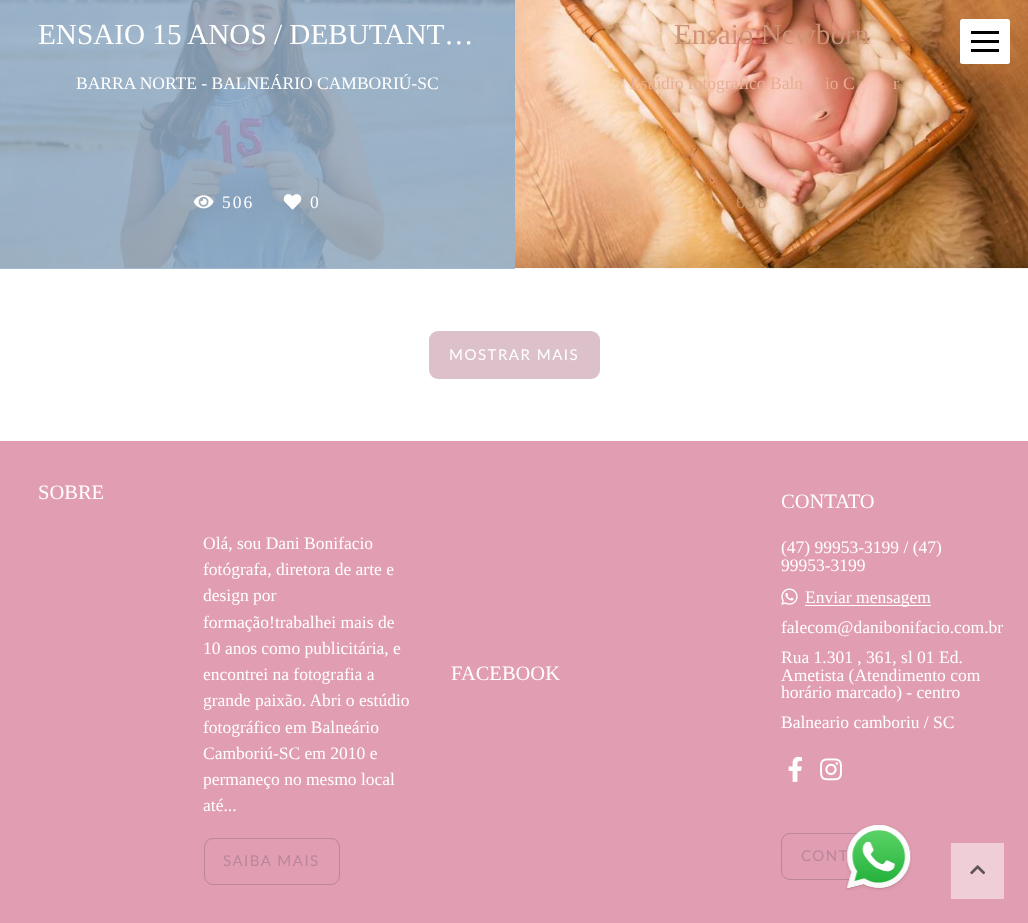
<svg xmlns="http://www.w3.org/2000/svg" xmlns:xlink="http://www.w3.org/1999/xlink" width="1028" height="923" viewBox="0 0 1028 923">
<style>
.cls-1{font:29.2px Liberation Serif;fill:#ffffff}
.cls-2{font:17.5px Liberation Serif;fill:#ffffff}
.cls-3{font:17.5px Liberation Serif;letter-spacing:2px;fill:#ffffff}
.cls-4{font:29.2px Liberation Serif;fill:#d19377}
.cls-5{font:17.5px Liberation Serif;fill:#e7ae94}
.cls-6{font:17.5px Liberation Serif;letter-spacing:2px;fill:#c39064}
.cls-7{font:15px Lato;letter-spacing:1.5px;fill:#ffffff}
.cls-8{font:20.5px Liberation Serif;fill:#ffffff}
.cls-9{font:15px Lato;letter-spacing:1.5px;fill:#ba869a}
</style>
<rect width="100%" height="100%" fill="#ffffff"/>
<rect fill="#a3bad0" x="0" y="268" width="515" height="1"/>
<image xlink:href="image0.png" x="0" y="0" width="515" height="269"/>
<image xlink:href="image1.png" x="193" y="195" width="21" height="14"/>
<image xlink:href="image2.png" x="283" y="194" width="19" height="16"/>
<image xlink:href="image3.png" x="515" y="0" width="513" height="269"/>
<rect fill="#dcc1cb" x="429" y="331" width="171" height="48" rx="9"/>
<rect fill="#ffffff" x="960" y="19" width="50" height="45" rx="2.5"/>
<rect fill="#000000" x="971" y="31" width="28" height="3"/>
<rect fill="#000000" x="971" y="40" width="28" height="3"/>
<rect fill="#000000" x="971" y="49" width="28" height="3"/>
<rect fill="#e19db1" x="0" y="441" width="1028" height="482"/>
<rect fill="none" stroke="#ba869a" x="204.5" y="838.5" width="135" height="46" rx="8.5"/>
<image xlink:href="image4.png" x="781" y="588" width="17" height="17"/>
<rect fill="#ffffff" x="805" y="605" width="126" height="1"/>
<image xlink:href="image5.png" x="788" y="756" width="14" height="26"/>
<image xlink:href="image6.png" x="820" y="758" width="22" height="23"/>
<rect fill="none" stroke="#ba869a" x="781.5" y="833.5" width="121" height="46" rx="8.5"/>
<rect fill="#f0ced8" x="951" y="843" width="53" height="56"/>
<image xlink:href="image8.png" x="970" y="865" width="15" height="10"/>
<text class="cls-1" x="38" y="44">ENSAIO 15 ANOS / DEBUTANT…</text>
<text class="cls-2" x="76" y="89">BARRA NORTE - BALNEÁRIO CAMBORIÚ-SC</text>
<text class="cls-3" x="222" y="208">506</text>
<text class="cls-3" x="310" y="208">0</text>
<text class="cls-4" x="674" y="44">Ensaio Newborn</text>
<text class="cls-5" x="630" y="89">Estúdio fotografico Baln</text>
<text class="cls-5" x="825" y="89">io C</text>
<text class="cls-5" x="893" y="89">r</text>
<text class="cls-6" x="736" y="208">698</text>
<text class="cls-7" x="449" y="360">MOSTRAR MAIS</text>
<text class="cls-8" x="38" y="499">SOBRE</text>
<text class="cls-2"><tspan x="203" y="549">Olá, sou Dani Bonifacio</tspan><tspan x="203" y="575">fotógrafa, diretora de arte e</tspan><tspan x="203" y="601">design por</tspan><tspan x="203" y="628">formação!trabalhei mais de</tspan><tspan x="203" y="654">10 anos como publicitária, e</tspan><tspan x="203" y="680">encontrei na fotografia a</tspan><tspan x="203" y="706">grande paixão. Abri o estúdio</tspan><tspan x="203" y="733">fotográfico em Balneário</tspan><tspan x="203" y="759">Camboriú-SC em 2010 e</tspan><tspan x="203" y="785">permaneço no mesmo local</tspan><tspan x="203" y="811">até...</tspan></text>
<text class="cls-9" x="223" y="866">SAIBA MAIS</text>
<text class="cls-8" x="451" y="680">FACEBOOK</text>
<text class="cls-8" x="781" y="508">CONTATO</text>
<text class="cls-2"><tspan x="781" y="553">(47) 99953-3199 / (47)</tspan><tspan x="781" y="571">99953-3199</tspan></text>
<text class="cls-2" x="805" y="603">Enviar mensagem</text>
<text class="cls-2"><tspan x="781" y="633">falecom@danibonifacio.com.br</tspan><tspan x="781" y="663">Rua 1.301 , 361, sl 01 Ed.</tspan><tspan x="781" y="681">Ametista (Atendimento com</tspan><tspan x="781" y="698">horário marcado) - centro</tspan><tspan x="781" y="728">Balneario camboriu / SC</tspan></text>
<text class="cls-9" x="801" y="861">CONT</text>
<image xlink:href="image7.png" x="846" y="824" width="66" height="67"/>
</svg>
